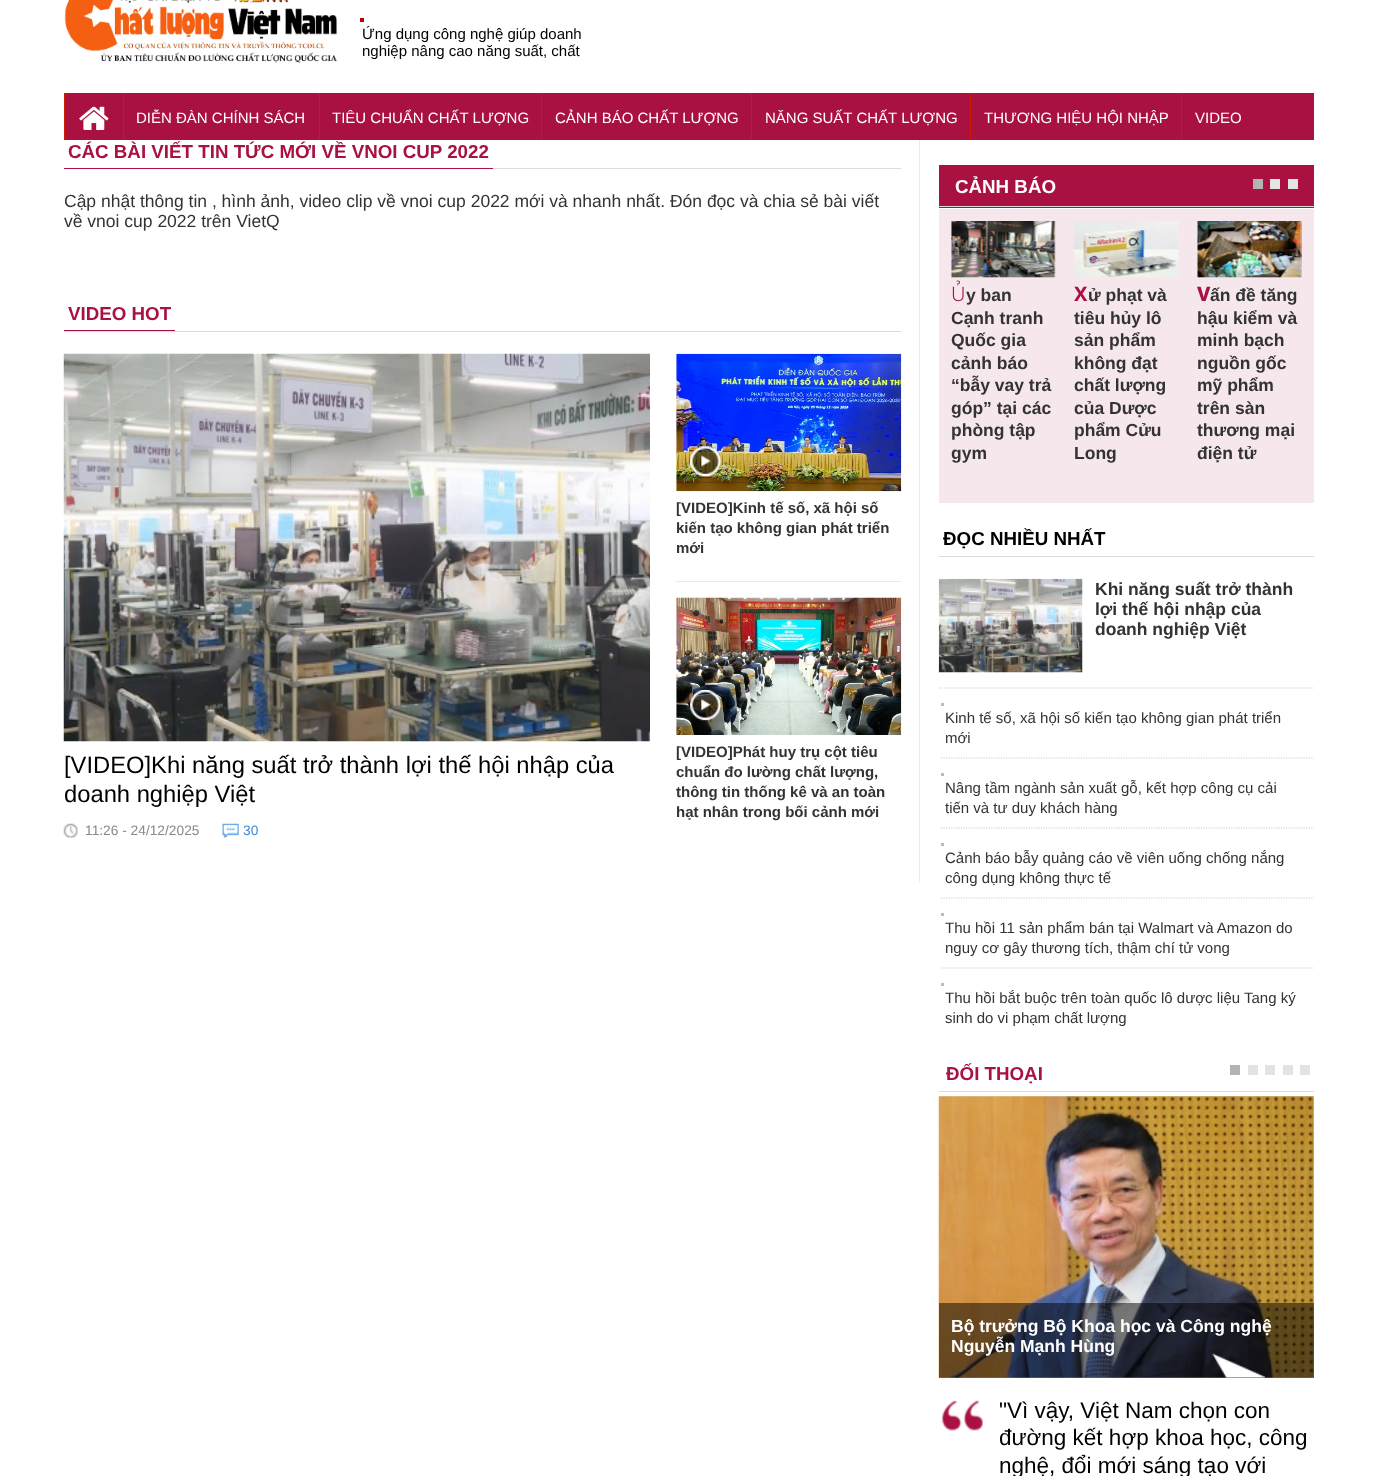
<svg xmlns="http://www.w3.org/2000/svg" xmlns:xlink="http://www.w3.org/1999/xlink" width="1377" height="1476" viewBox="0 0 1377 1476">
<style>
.cls-1{font:15px Liberation Sans;fill:#000000}
.cls-2{font:15px Liberation Sans;fill:#ffffff}
.cls-3{font:bold 18.75px Liberation Sans;fill:#a91140}
.cls-4{font:17.5px Liberation Sans;fill:#333333}
.cls-5{font:bold 15px Liberation Sans;fill:#333333}
.cls-6{font:23.75px Liberation Sans;fill:#000000}
.cls-7{font:13.75px Liberation Sans;fill:#888888}
.cls-8{font:13.75px Liberation Sans;fill:#3989dd}
.cls-9{font:bold 18.75px Liberation Sans;fill:#ffffff}
.cls-10{font:300 20px Noto Sans;fill:#a91140}
.cls-11{font:bold 17.5px Liberation Sans;fill:#333333}
.cls-12{font:bold 20px Noto Sans;fill:#a91140}
.cls-13{font:800 20px Noto Sans;fill:#a91140}
.cls-14{font:bold 18.75px Liberation Sans;fill:#000000}
.cls-15{font:15px Liberation Sans;fill:#333333}
.cls-16{font:bold 17.5px Liberation Sans;fill:#ffffff}
.cls-17{font:22.5px Liberation Sans;fill:#000000}
</style>
<rect width="100%" height="100%" fill="#ffffff"/>
<image xlink:href="image0.png" x="64" y="0" width="274" height="63"/>
<rect fill="#bb0000" x="360" y="18" width="4" height="4"/>
<rect fill="#a91140" x="65" y="93" width="1249" height="47"/>
<rect fill="#ce1800" x="64" y="93" width="1" height="47"/>
<image xlink:href="image1.png" x="79" y="106" width="30" height="24"/>
<rect fill="#ce1800" x="123" y="93" width="1" height="47"/>
<rect fill="#ce1800" x="319" y="93" width="1" height="47"/>
<rect fill="#ce1800" x="541" y="93" width="1" height="47"/>
<rect fill="#ce1800" x="751" y="93" width="1" height="47"/>
<rect fill="#ce1800" x="970" y="93" width="1" height="47"/>
<rect fill="#ce1800" x="1181" y="93" width="1" height="47"/>
<rect fill="#ebebeb" x="919" y="140" width="1" height="743"/>
<rect fill="#dddddd" x="493" y="168" width="408" height="1"/>
<rect fill="#a91140" x="64" y="168" width="429" height="1"/>
<rect fill="#dddddd" x="64" y="331" width="837" height="1"/>
<rect fill="#a91140" x="64" y="330" width="111" height="1"/>
<rect fill="#eaeaea" x="676" y="581" width="225" height="1"/>
<image xlink:href="image2.png" x="676" y="353" width="226" height="139"/>
<image xlink:href="image3.png" x="690" y="446" width="32" height="31"/>
<image xlink:href="image4.png" x="63" y="353" width="587" height="389"/>
<image xlink:href="image5.png" x="63" y="823" width="15" height="15"/>
<image xlink:href="image6.png" x="222" y="823" width="17" height="15"/>
<image xlink:href="image7.png" x="676" y="597" width="226" height="138"/>
<image xlink:href="image8.png" x="690" y="690" width="32" height="31"/>
<rect fill="#a91140" x="939" y="165" width="375" height="43"/>
<rect fill="#dddddd" x="939" y="206" width="375" height="1"/>
<rect fill="#f6e7ec" x="939" y="209" width="375" height="294"/>
<rect fill="#b3b3b3" x="1253" y="179" width="10" height="10"/>
<rect fill="#e3e3e3" x="1270" y="179" width="10" height="10"/>
<rect fill="#e3e3e3" x="1288" y="179" width="10" height="10"/>
<image xlink:href="image9.png" x="951" y="221" width="105" height="57"/>
<image xlink:href="image10.png" x="1073" y="221" width="106" height="57"/>
<image xlink:href="image11.png" x="1197" y="221" width="105" height="57"/>
<rect fill="#dddddd" x="939" y="556" width="375" height="1"/>
<path fill="none" stroke="#cccccc" stroke-width="1.2" stroke-dasharray="1.25 1.25" d="M939 688H1314"/>
<image xlink:href="image12.png" x="938" y="578" width="145" height="95"/>
<path fill="none" stroke="#cccccc" stroke-width="1.2" stroke-dasharray="1.25 1.25" d="M941 758H1314"/>
<rect fill="#bbbbbb" x="941" y="703" width="3" height="3"/>
<path fill="none" stroke="#cccccc" stroke-width="1.2" stroke-dasharray="1.25 1.25" d="M941 828H1314"/>
<rect fill="#bbbbbb" x="941" y="773" width="3" height="3"/>
<path fill="none" stroke="#cccccc" stroke-width="1.2" stroke-dasharray="1.25 1.25" d="M941 898H1314"/>
<rect fill="#bbbbbb" x="941" y="843" width="3" height="3"/>
<path fill="none" stroke="#cccccc" stroke-width="1.2" stroke-dasharray="1.25 1.25" d="M941 968H1314"/>
<rect fill="#bbbbbb" x="941" y="913" width="3" height="3"/>
<rect fill="#bbbbbb" x="941" y="983" width="3" height="3"/>
<rect fill="#dddddd" x="939" y="1091" width="375" height="1"/>
<rect fill="#b3b3b3" x="1230" y="1065" width="10" height="10"/>
<rect fill="#e3e3e3" x="1248" y="1065" width="10" height="10"/>
<rect fill="#e3e3e3" x="1265" y="1065" width="10" height="10"/>
<rect fill="#e3e3e3" x="1283" y="1065" width="10" height="10"/>
<rect fill="#e3e3e3" x="1300" y="1065" width="10" height="10"/>
<rect fill="#f0f0f0" x="939" y="1096" width="375" height="282"/>
<image xlink:href="image13.png" x="938" y="1096" width="376" height="282"/>
<rect fill="#000000" fill-opacity="0.5" x="939" y="1303" width="375" height="75"/>
<image xlink:href="image14.png" x="941" y="1400" width="42" height="31"/>
<image xlink:href="image15.png" x="1212" y="1353" width="53" height="25"/>
<text class="cls-1"><tspan x="362" y="39">Ứng dụng công nghệ giúp doanh</tspan><tspan x="362" y="56">nghiệp nâng cao năng suất, chất</tspan></text>
<text class="cls-2" x="136" y="123">DIỄN ĐÀN CHÍNH SÁCH</text>
<text class="cls-2" x="332" y="123">TIÊU CHUẨN CHẤT LƯỢNG</text>
<text class="cls-2" x="555" y="123">CẢNH BÁO CHẤT LƯỢNG</text>
<text class="cls-2" x="765" y="123">NĂNG SUẤT CHẤT LƯỢNG</text>
<text class="cls-2" x="984" y="123">THƯƠNG HIỆU HỘI NHẬP</text>
<text class="cls-2" x="1195" y="123">VIDEO</text>
<text class="cls-3" x="68" y="158">CÁC BÀI VIẾT TIN TỨC MỚI VỀ VNOI CUP 2022</text>
<text class="cls-4"><tspan x="64" y="207">Cập nhật thông tin , hình ảnh, video clip về vnoi cup 2022 mới và nhanh nhất. Đón đọc và chia sẻ bài viết</tspan><tspan x="64" y="227">về vnoi cup 2022 trên VietQ</tspan></text>
<text class="cls-3" x="68" y="320">VIDEO HOT</text>
<text class="cls-5"><tspan x="676" y="513">[VIDEO]Kinh tế số, xã hội số</tspan><tspan x="676" y="533">kiến tạo không gian phát triển</tspan><tspan x="676" y="553">mới</tspan></text>
<text class="cls-6"><tspan x="64" y="773">[VIDEO]Khi năng suất trở thành lợi thế hội nhập của</tspan><tspan x="64" y="802">doanh nghiệp Việt</tspan></text>
<text class="cls-7" x="85" y="835">11:26 - 24/12/2025</text>
<text class="cls-8" x="243" y="835">30</text>
<text class="cls-5"><tspan x="676" y="757">[VIDEO]Phát huy trụ cột tiêu</tspan><tspan x="676" y="777">chuẩn đo lường chất lượng,</tspan><tspan x="676" y="797">thông tin thống kê và an toàn</tspan><tspan x="676" y="817">hạt nhân trong bối cảnh mới</tspan></text>
<text class="cls-9" x="955" y="193">CẢNH BÁO</text>
<text class="cls-10" x="951" y="301">Ủ</text>
<text class="cls-11" x="966" y="301">y ban</text>
<text class="cls-11"><tspan x="951" y="324">Cạnh tranh</tspan><tspan x="951" y="346">Quốc gia</tspan><tspan x="951" y="369">cảnh báo</tspan><tspan x="951" y="391">“bẫy vay trả</tspan><tspan x="951" y="414">góp” tại các</tspan><tspan x="951" y="436">phòng tập</tspan><tspan x="951" y="459">gym</tspan></text>
<text class="cls-12" x="1074" y="301">X</text>
<text class="cls-11" x="1088" y="301">ử phạt và</text>
<text class="cls-11"><tspan x="1074" y="324">tiêu hủy lô</tspan><tspan x="1074" y="346">sản phẩm</tspan><tspan x="1074" y="369">không đạt</tspan><tspan x="1074" y="391">chất lượng</tspan><tspan x="1074" y="414">của Dược</tspan><tspan x="1074" y="436">phẩm Cửu</tspan><tspan x="1074" y="459">Long</tspan></text>
<text class="cls-13" x="1197" y="301">V</text>
<text class="cls-11" x="1210" y="301">ấn đề tăng</text>
<text class="cls-11"><tspan x="1197" y="324">hậu kiểm và</tspan><tspan x="1197" y="346">minh bạch</tspan><tspan x="1197" y="369">nguồn gốc</tspan><tspan x="1197" y="391">mỹ phẩm</tspan><tspan x="1197" y="414">trên sàn</tspan><tspan x="1197" y="436">thương mại</tspan><tspan x="1197" y="459">điện tử</tspan></text>
<text class="cls-14" x="943" y="545">ĐỌC NHIỀU NHẤT</text>
<text class="cls-11"><tspan x="1095" y="595">Khi năng suất trở thành</tspan><tspan x="1095" y="615">lợi thế hội nhập của</tspan><tspan x="1095" y="635">doanh nghiệp Việt</tspan></text>
<text class="cls-15"><tspan x="945" y="723">Kinh tế số, xã hội số kiến tạo không gian phát triển</tspan><tspan x="945" y="743">mới</tspan></text>
<text class="cls-15"><tspan x="945" y="793">Nâng tầm ngành sản xuất gỗ, kết hợp công cụ cải</tspan><tspan x="945" y="813">tiến và tư duy khách hàng</tspan></text>
<text class="cls-15"><tspan x="945" y="863">Cảnh báo bẫy quảng cáo về viên uống chống nắng</tspan><tspan x="945" y="883">công dụng không thực tế</tspan></text>
<text class="cls-15"><tspan x="945" y="933">Thu hồi 11 sản phẩm bán tại Walmart và Amazon do</tspan><tspan x="945" y="953">nguy cơ gây thương tích, thậm chí tử vong</tspan></text>
<text class="cls-15"><tspan x="945" y="1003">Thu hồi bắt buộc trên toàn quốc lô dược liệu Tang ký</tspan><tspan x="945" y="1023">sinh do vi phạm chất lượng</tspan></text>
<text class="cls-3" x="946" y="1080">ĐỐI THOẠI</text>
<text class="cls-16"><tspan x="951" y="1332">Bộ trưởng Bộ Khoa học và Công nghệ</tspan><tspan x="951" y="1352">Nguyễn Mạnh Hùng</tspan></text>
<text class="cls-17"><tspan x="999" y="1418">"Vì vậy, Việt Nam chọn con</tspan><tspan x="999" y="1445">đường kết hợp khoa học, công</tspan><tspan x="999" y="1473">nghệ, đổi mới sáng tạo với</tspan></text>
</svg>
